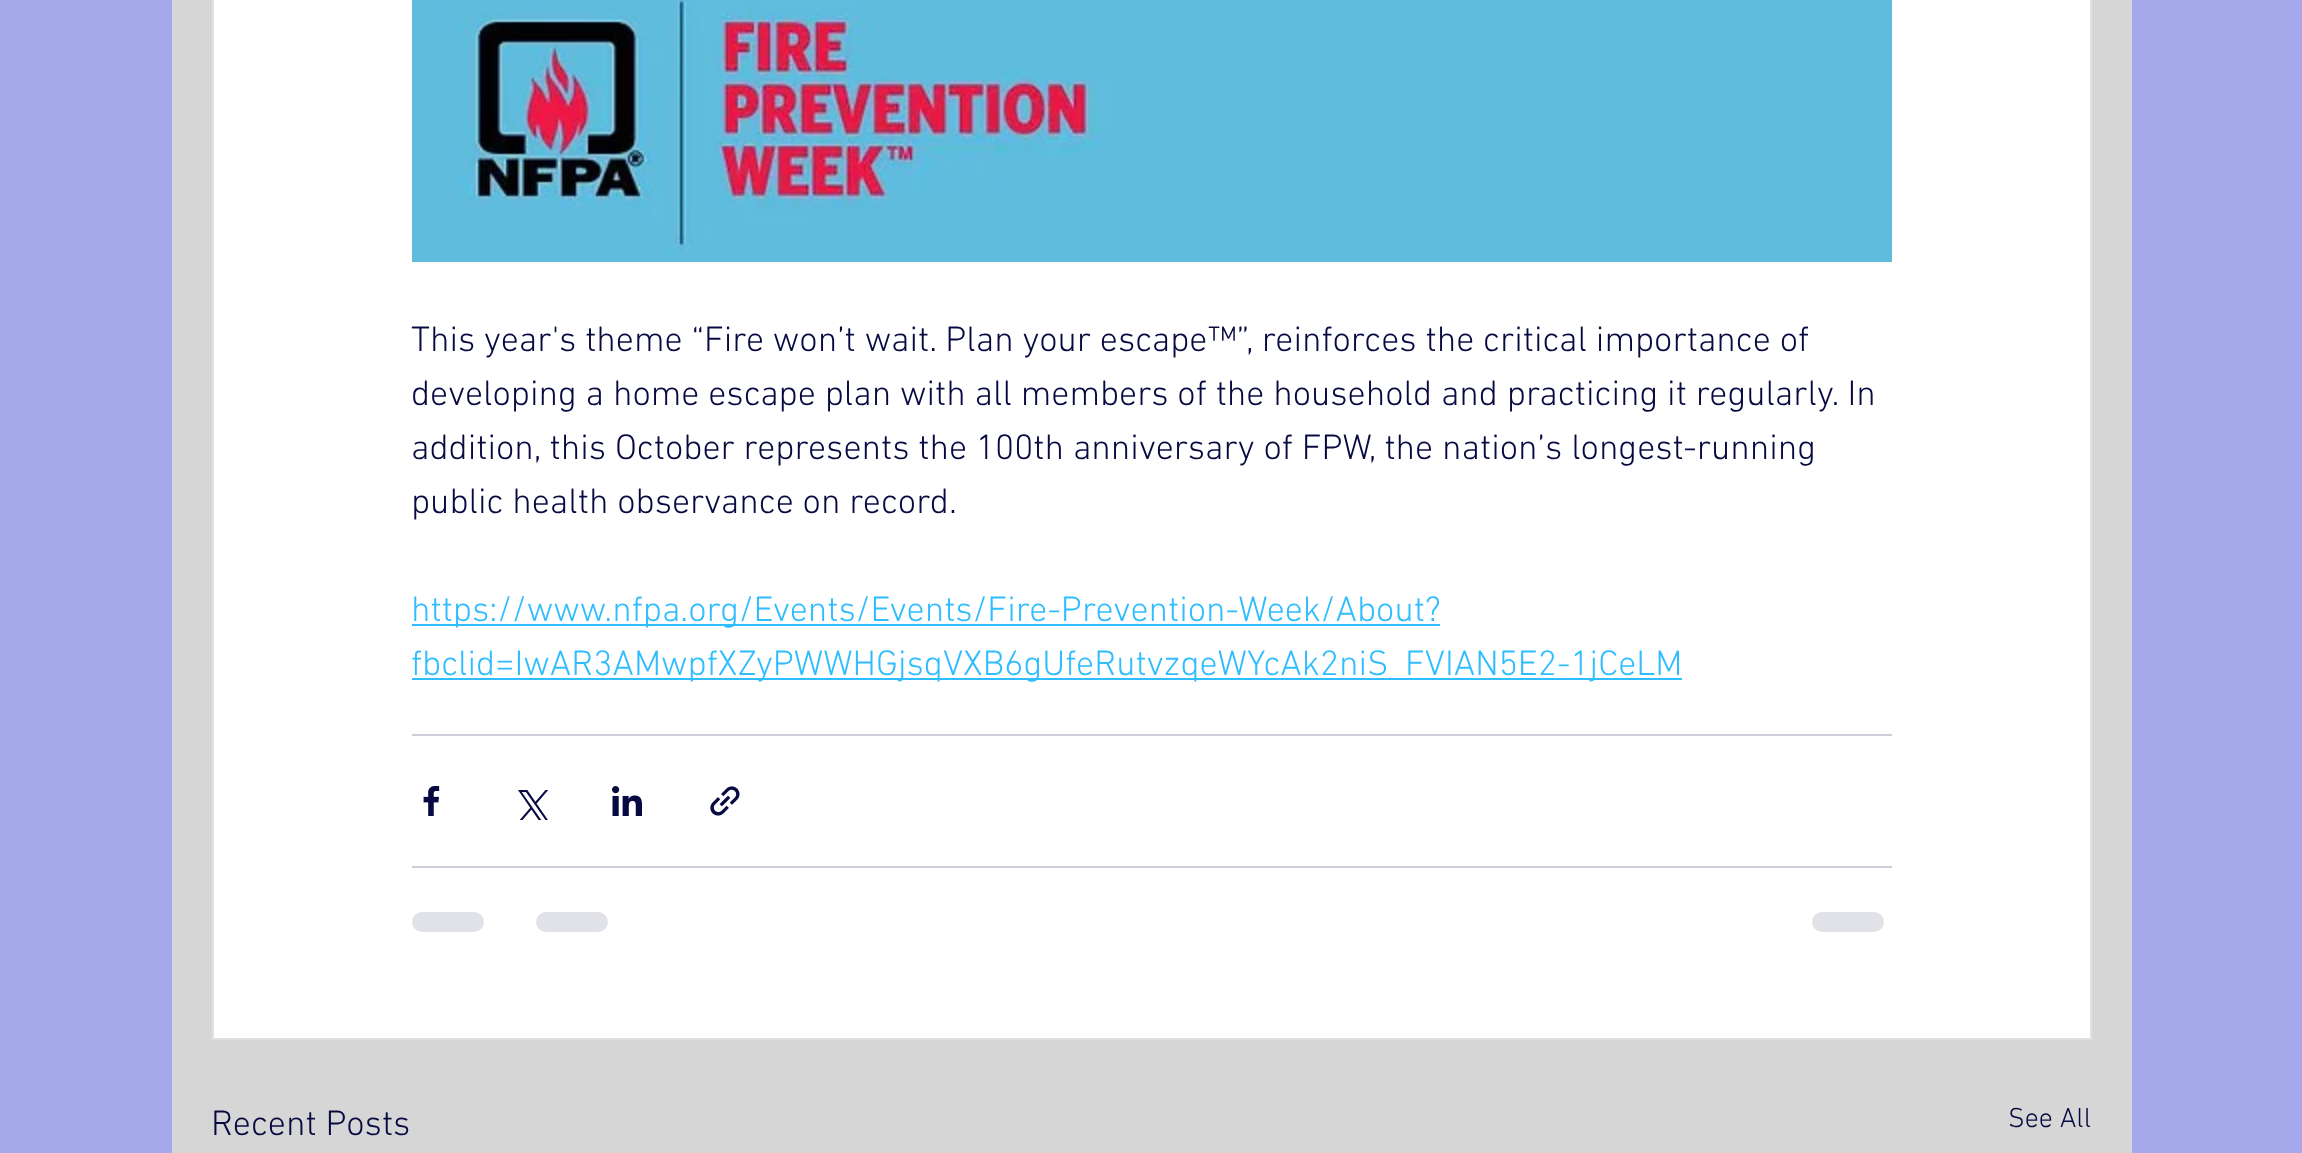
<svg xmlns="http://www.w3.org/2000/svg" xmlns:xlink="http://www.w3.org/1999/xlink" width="2302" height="1153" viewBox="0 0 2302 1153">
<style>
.cls-1{font:300 36px 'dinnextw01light';fill:#070941}
.cls-2{font:300 36px 'dinnextw01light';fill:#30bdff}
.cls-3{font:300 28px 'dinnextw01light';fill:#070941}
</style>
<rect width="100%" height="100%" fill="#a5a8eb"/>
<rect fill="#d6d6d6" x="172" y="0" width="1960" height="1153"/>
<rect fill="#ffffff" stroke="#e0e0e0" stroke-width="2" x="213" y="-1" width="1878" height="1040"/>
<image xlink:href="image0.png" x="412" y="0" width="1480" height="262"/>
<rect fill="#30bdff" x="412" y="624" width="1028" height="2"/>
<rect fill="#30bdff" x="412" y="678" width="1270" height="2"/>
<rect fill="#cdced9" x="412" y="734" width="1480" height="2"/>
<image xlink:href="image1.png" x="423" y="786" width="17" height="30"/>
<image xlink:href="image2.png" x="518" y="790" width="30" height="30"/>
<image xlink:href="image3.png" x="612" y="786" width="30" height="30"/>
<image xlink:href="image4.png" x="710" y="786" width="30" height="30"/>
<rect fill="#cdced9" x="412" y="866" width="1480" height="2"/>
<rect fill="#e1e1e8" x="412" y="912" width="72" height="20" rx="10"/>
<rect fill="#e1e1e8" x="536" y="912" width="72" height="20" rx="10"/>
<rect fill="#e1e1e8" x="1812" y="912" width="72" height="20" rx="10"/>
<text class="cls-1"><tspan x="411" y="351">This year's theme “Fire won’t wait. Plan your escape™”, reinforces the critical importance of</tspan><tspan x="411" y="405">developing a home escape plan with all members of the household and practicing it regularly. In</tspan><tspan x="411" y="459">addition, this October represents the 100th anniversary of FPW, the nation’s longest-running</tspan><tspan x="411" y="513">public health observance on record.</tspan></text>
<text class="cls-2"><tspan x="411" y="621">https://www.nfpa.org/Events/Events/Fire-Prevention-Week/About?</tspan><tspan x="411" y="675">fbclid=IwAR3AMwpfXZyPWWHGjsqVXB6gUfeRutvzqeWYcAk2niS_FVIAN5E2-1jCeLM</tspan></text>
<text class="cls-1" x="211" y="1135">Recent Posts</text>
<text class="cls-3" x="2008" y="1127">See All</text>
</svg>
